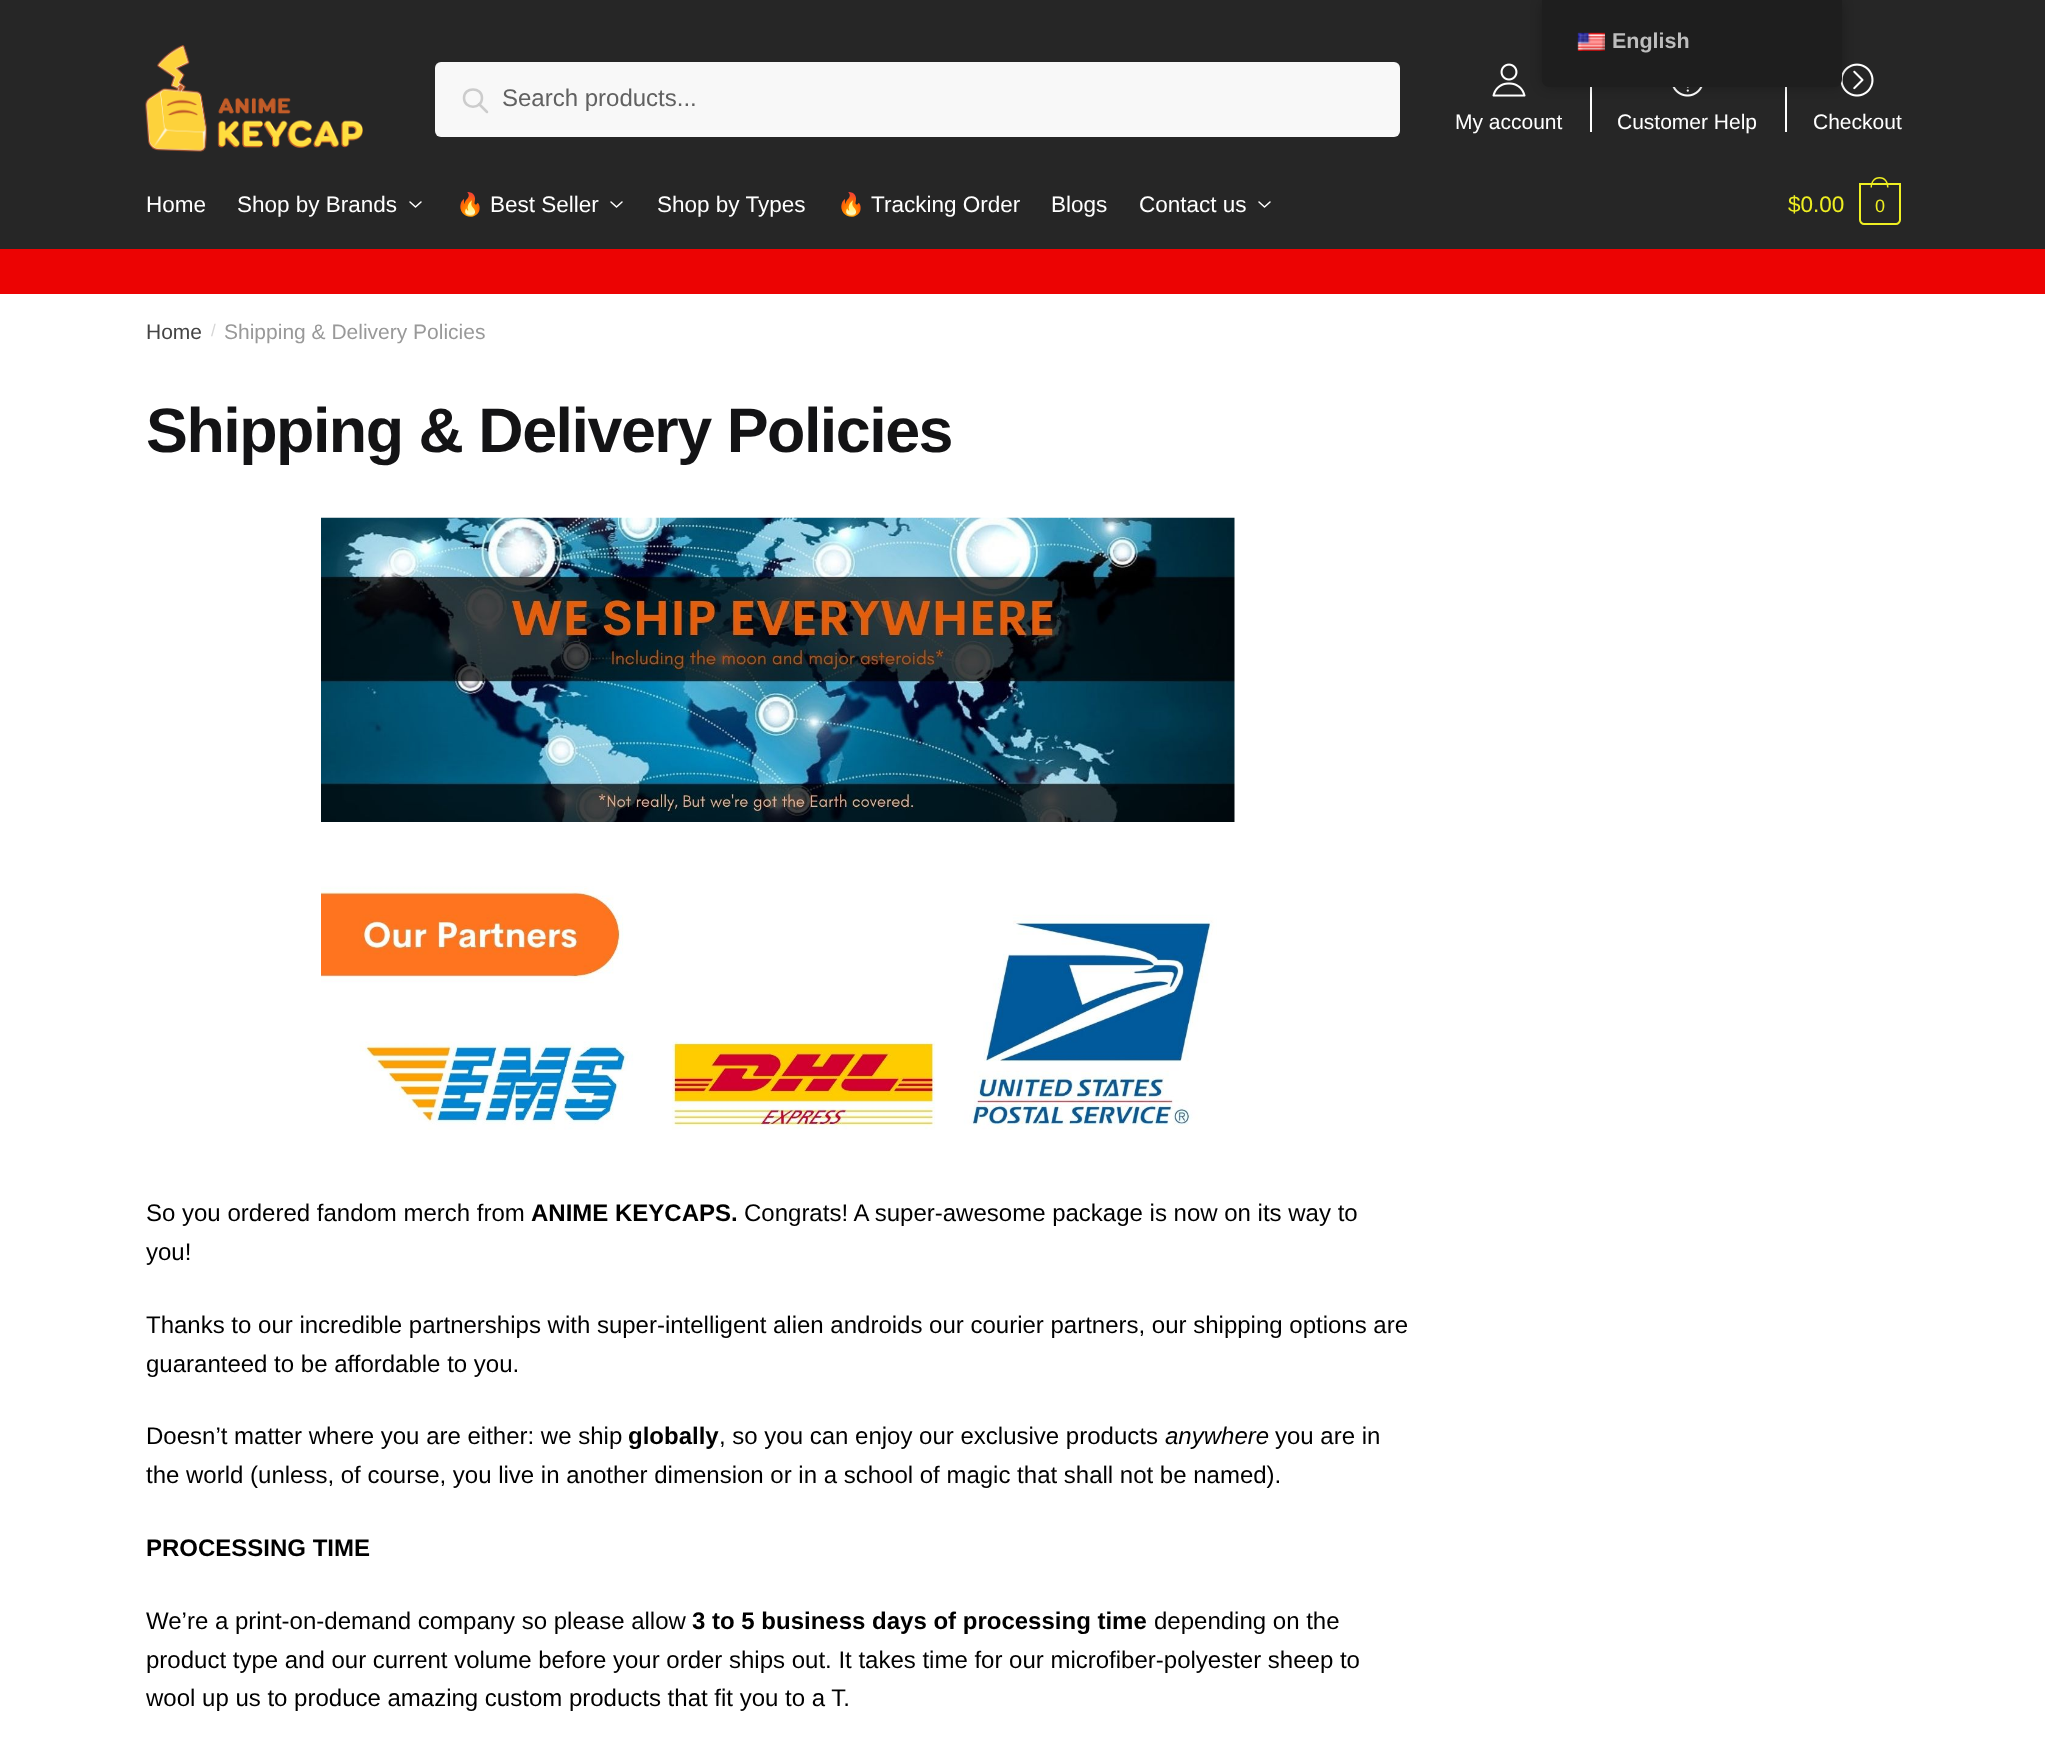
<svg xmlns="http://www.w3.org/2000/svg" xmlns:xlink="http://www.w3.org/1999/xlink" width="2045" height="1750" viewBox="0 0 2045 1750">
<style>
.cls-1{font:bold 21.5px Liberation Sans;fill:#bdbdbd}
.cls-2{font:24px Liberation Sans;fill:#616161}
.cls-3{font:21px Liberation Sans;fill:#ffffff}
.cls-4{font:22.5px Liberation Sans;fill:#ffffff}
.cls-5{font:22.5px Noto Color Emoji;fill:#ffffff}
.cls-6{font:22.5px Liberation Sans;fill:#eeee22}
.cls-7{font:18px Liberation Sans;letter-spacing:-1px;fill:#eeee22}
.cls-8{font:21px Liberation Sans;fill:#444444}
.cls-9{font:17px Liberation Sans;fill:#d6d6d6}
.cls-10{font:21px Liberation Sans;fill:#999999}
.cls-11{font:bold 62.8px Liberation Sans;letter-spacing:-1.5px;fill:#131315}
.cls-12{font:24px Liberation Sans;fill:#000000}
.cls-13{font:bold 24px Liberation Sans;fill:#000000}
.cls-14{font:italic 24px Liberation Sans;fill:#000000}
</style>
<rect width="100%" height="100%" fill="#ffffff"/>
<rect fill="#262626" x="0" y="0" width="2045" height="38"/>
<rect fill="#262626" x="0" y="38" width="2045" height="211"/>
<image xlink:href="image2.png" x="1492" y="63" width="34" height="34"/>
<rect fill="#ffffff" x="1590" y="87" width="2" height="45"/>
<image xlink:href="image3.png" x="1672" y="87" width="31" height="10"/>
<rect fill="#ffffff" x="1785" y="87" width="2" height="45"/>
<image xlink:href="image4.png" x="1840" y="63" width="34" height="34"/>
<rect fill="#000000" fill-opacity="0.25" filter="blur(6px)" x="1542" y="0" width="300" height="87" rx="8"/>
<path fill="#1e1e1e" d="M1542 0H1842V79C1842 83.5 1838.5 87 1834 87H1550C1545.5 87 1542 83.5 1542 79Z"/>
<image xlink:href="image0.png" x="1577" y="32" width="28" height="19"/>
<image xlink:href="image1.png" x="145" y="45" width="218" height="107"/>
<rect fill="#f8f8f8" x="435" y="62" width="965" height="75" rx="6"/>
<path fill="none" stroke="#cccccc" stroke-width="2.5" stroke-linecap="round" stroke-linejoin="round" d="M487 112L479 104M482 98C482 109.5 464 109.5 464 98C464 86.5 482 86.5 482 98Z"/>
<path fill="none" stroke="#ffffff" stroke-width="1.5" stroke-linecap="round" stroke-linejoin="round" d="M421 202L415.5 207L410 202"/>
<path fill="none" stroke="#ffffff" stroke-width="1.5" stroke-linecap="round" stroke-linejoin="round" d="M622 202L616.5 207L611 202"/>
<path fill="none" stroke="#ffffff" stroke-width="1.5" stroke-linecap="round" stroke-linejoin="round" d="M1270 202L1264.5 207L1259 202"/>
<path fill="none" stroke="#eeee22" stroke-width="2" d="M1860 184H1900V220C1900 222 1898 224 1896 224H1864C1862 224 1860 222 1860 220Z"/>
<path fill="#eeee22" fill-rule="evenodd" d="M1879.5 177C1885.5 177 1888.5 182 1888.5 187.5H1870.5C1870.5 182 1873.5 177 1879.5 177ZM1879.5 178.5C1885 178.5 1887 183 1887 187.5H1872C1872 183 1874 178.5 1879.5 178.5Z"/>
<rect fill="#ec0303" x="0" y="249" width="2045" height="45"/>
<image xlink:href="image5.png" x="321" y="517" width="914" height="305"/>
<image xlink:href="image6.png" x="321" y="886" width="896" height="244"/>
<text class="cls-1" x="1612" y="48">English</text>
<text class="cls-2" x="502" y="106">Search products...</text>
<text class="cls-3" x="1455" y="129">My account</text>
<text class="cls-3" x="1617" y="129">Customer Help</text>
<text class="cls-3" x="1813" y="129">Checkout</text>
<text class="cls-4" x="146" y="212">Home</text>
<text class="cls-4" x="237" y="212">Shop by Brands</text>
<text class="cls-5" x="456" y="212">🔥</text>
<text class="cls-4" x="490" y="212">Best Seller</text>
<text class="cls-4" x="657" y="212">Shop by Types</text>
<text class="cls-5" x="837" y="212">🔥</text>
<text class="cls-4" x="871" y="212">Tracking Order</text>
<text class="cls-4" x="1051" y="212">Blogs</text>
<text class="cls-4" x="1139" y="212">Contact us</text>
<text class="cls-6" x="1788" y="212">$0.00</text>
<text class="cls-7" x="1875" y="212">0</text>
<text class="cls-8" x="146" y="339">Home</text>
<text class="cls-9" x="211" y="336">/</text>
<text class="cls-10" x="224" y="339">Shipping &amp; Delivery Policies</text>
<text class="cls-11" x="146" y="452">Shipping &amp; Delivery Policies</text>
<text class="cls-12" x="146" y="1221">So you ordered fandom merch from</text>
<text class="cls-13" x="531" y="1221">ANIME KEYCAPS.</text>
<text class="cls-12" x="744" y="1221">Congrats! A super-awesome package is now on its way to</text>
<text class="cls-12" x="146" y="1260">you!</text>
<text class="cls-12"><tspan x="146" y="1333">Thanks to our incredible partnerships with super-intelligent alien androids our courier partners, our shipping options are</tspan><tspan x="146" y="1372">guaranteed to be affordable to you.</tspan></text>
<text class="cls-12" x="146" y="1444">Doesn’t matter where you are either: we ship</text>
<text class="cls-13" x="628" y="1444">globally</text>
<text class="cls-12" x="719" y="1444">, so you can enjoy our exclusive products</text>
<text class="cls-14" x="1165" y="1444">anywhere</text>
<text class="cls-12" x="1275" y="1444">you are in</text>
<text class="cls-12" x="146" y="1483">the world (unless, of course, you live in another dimension or in a school of magic that shall not be named).</text>
<text class="cls-13" x="146" y="1556">PROCESSING TIME</text>
<text class="cls-12" x="146" y="1629">We’re a print-on-demand company so please allow</text>
<text class="cls-13" x="692" y="1629">3 to 5 business days of processing time</text>
<text class="cls-12" x="1154" y="1629">depending on the</text>
<text class="cls-12"><tspan x="146" y="1668">product type and our current volume before your order ships out. It takes time for our microfiber-polyester sheep to</tspan><tspan x="146" y="1706">wool up us to produce amazing custom products that fit you to a T.</tspan></text>
</svg>
